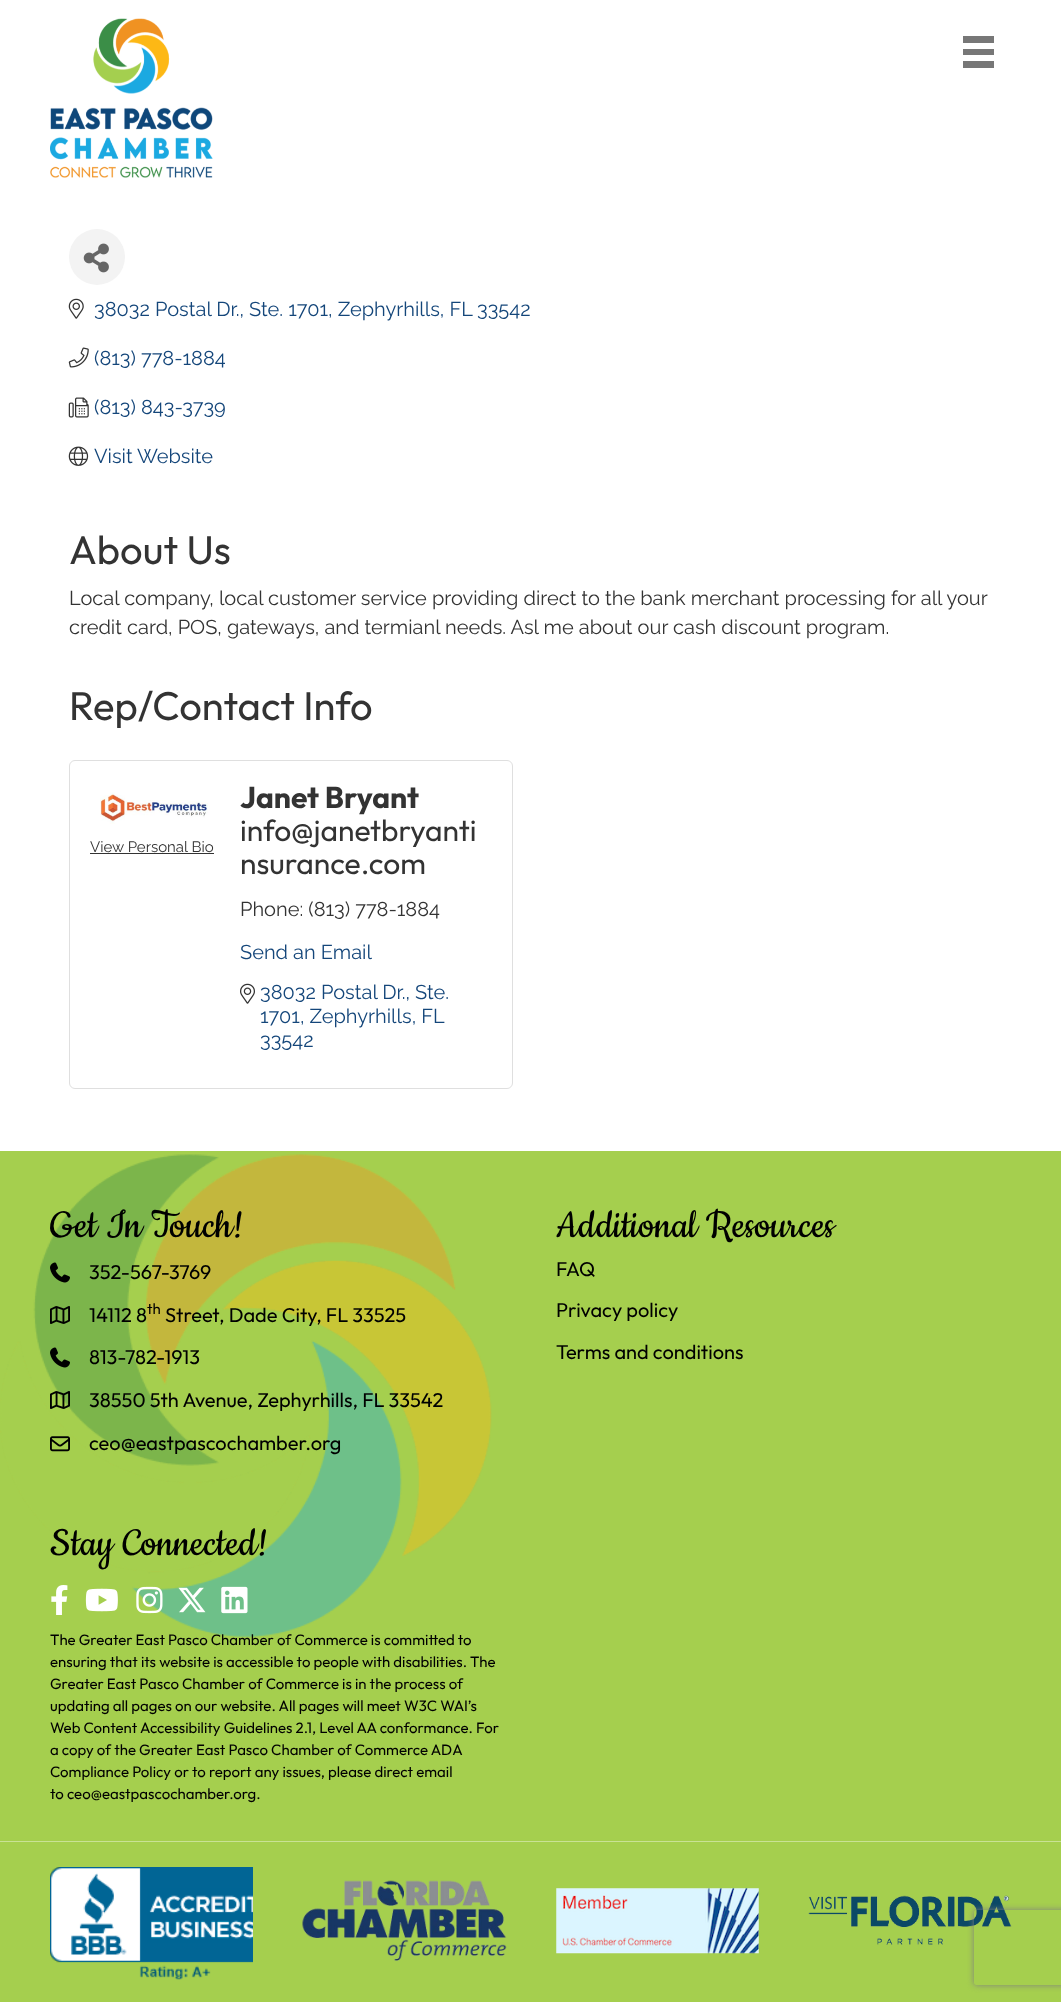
<svg xmlns="http://www.w3.org/2000/svg" xmlns:xlink="http://www.w3.org/1999/xlink" width="1061" height="2002" viewBox="0 0 1061 2002">
<style>
.cls-1{font:20px Raleway;fill:#14467a}
.cls-2{font:40px Outfit;fill:#333333}
.cls-3{font:20px Raleway;fill:#333333}
.cls-4{font:15px Raleway;fill:#333333}
.cls-5{font:bold 30px Outfit;fill:#333333}
.cls-6{font:30px Outfit;fill:#333333}
.cls-7{font:45px Cookie;fill:#000000}
.cls-8{font:20px Outfit;fill:#000000}
.cls-9{font:15px Outfit;fill:#000000}
</style>
<defs>
<clipPath id="clip1"><path d="M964 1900H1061V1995H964ZM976.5 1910H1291.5C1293 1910 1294 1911 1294 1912.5V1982.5C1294 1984 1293 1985 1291.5 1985H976.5C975 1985 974 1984 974 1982.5V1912.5C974 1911 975 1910 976.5 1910Z" clip-rule="evenodd"/></clipPath>
</defs>
<rect width="100%" height="100%" fill="#ffffff"/>
<image xlink:href="image0.png" x="50" y="18" width="163" height="160"/>
<rect fill="#777777" x="963" y="36" width="31" height="7"/>
<rect fill="#777777" x="963" y="49" width="31" height="6"/>
<rect fill="#777777" x="963" y="61" width="31" height="7"/>
<circle fill="#f3f3f3" cx="97" cy="257" r="28"/>
<image xlink:href="image1.png" x="83" y="243" width="26" height="30"/>
<image xlink:href="image2.png" x="68" y="298" width="16" height="21"/>
<image xlink:href="image3.png" x="68" y="347" width="21" height="21"/>
<image xlink:href="image4.png" x="68" y="397" width="21" height="21"/>
<image xlink:href="image5.png" x="68" y="446" width="21" height="20"/>
<rect fill="none" stroke="#dfdfdf" x="69.5" y="760.5" width="443" height="328" rx="5.5"/>
<image xlink:href="image6.png" x="100" y="792" width="110" height="32"/>
<rect fill="#333333" x="90" y="853" width="124" height="1"/>
<image xlink:href="image7.png" x="240" y="983" width="15" height="21"/>
<rect fill="#a5cf4e" x="0" y="1151" width="1061" height="690"/>
<image xlink:href="image8.png" x="0" y="1154" width="492" height="484"/>
<image xlink:href="image9.png" x="50" y="1262" width="20" height="21"/>
<image xlink:href="image10.png" x="50" y="1306" width="20" height="18"/>
<image xlink:href="image9.png" x="50" y="1347" width="20" height="21"/>
<image xlink:href="image11.png" x="50" y="1391" width="20" height="18"/>
<image xlink:href="image12.png" x="50" y="1436" width="20" height="16"/>
<image xlink:href="image13.png" x="51" y="1585" width="17" height="30"/>
<image xlink:href="image14.png" x="85" y="1588" width="33" height="24"/>
<image xlink:href="image15.png" x="136" y="1586" width="27" height="28"/>
<image xlink:href="image16.png" x="178" y="1587" width="28" height="26"/>
<image xlink:href="image17.png" x="221" y="1586" width="27" height="28"/>
<rect fill="#a5cf4e" x="0" y="1842" width="1061" height="160"/>
<rect fill="#c9e295" x="0" y="1841" width="1061" height="1"/>
<image xlink:href="image18.png" x="50" y="1867" width="203" height="113"/>
<image xlink:href="image19.png" x="302" y="1880" width="205" height="81"/>
<image xlink:href="image20.png" x="556" y="1888" width="203" height="66"/>
<image xlink:href="image21.png" x="808" y="1895" width="204" height="50"/>
<g clip-path="url(#clip1)">
<rect fill="#808080" filter="blur(3px)" x="974" y="1910" width="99" height="75" rx="2.5"/>
</g>
<text class="cls-1" x="94" y="316">38032 Postal Dr., Ste. 1701, Zephyrhills, FL</text>
<text class="cls-1" x="477" y="316">33542</text>
<text class="cls-1" x="94" y="365">(813) 778-1884</text>
<text class="cls-1" x="94" y="414">(813) 843-3739</text>
<text class="cls-1" x="94" y="463">Visit Website</text>
<text class="cls-2" x="69" y="564">About Us</text>
<text class="cls-3"><tspan x="69" y="605">Local company, local customer service providing direct to the bank merchant processing for all your</tspan><tspan x="69" y="634">credit card, POS, gateways, and termianl needs. Asl me about our cash discount program.</tspan></text>
<text class="cls-2" x="69" y="720">Rep/Contact Info</text>
<text class="cls-4" x="90" y="852">View Personal Bio</text>
<text class="cls-5" x="240" y="808">Janet Bryant</text>
<text class="cls-6"><tspan x="240" y="841">info@janetbryanti</tspan><tspan x="240" y="874">nsurance.com</tspan></text>
<text class="cls-3" x="240" y="916">Phone: (813) 778-1884</text>
<text class="cls-1" x="240" y="959">Send an Email</text>
<text class="cls-1"><tspan x="260" y="999">38032 Postal Dr., Ste.</tspan><tspan x="260" y="1023">1701, Zephyrhills, FL</tspan><tspan x="260" y="1047">33542</tspan></text>
<text class="cls-7" x="50" y="1237">Get In Touch!</text>
<text class="cls-8" x="89" y="1279">352-567-3769</text>
<text class="cls-8" x="89" y="1322">14112 8</text>
<text class="cls-9" x="147" y="1314">th</text>
<text class="cls-8" x="165" y="1322">Street, Dade City, FL 33525</text>
<text class="cls-8" x="89" y="1364">813-782-1913</text>
<text class="cls-8" x="89" y="1407">38550 5th Avenue, Zephyrhills, FL 33542</text>
<text class="cls-8" x="89" y="1450">ceo@eastpascochamber.org</text>
<text class="cls-7" x="556" y="1237">Additional Resources</text>
<text class="cls-8" x="556" y="1276">FAQ</text>
<text class="cls-8" x="556" y="1317">Privacy policy</text>
<text class="cls-8" x="556" y="1359">Terms and conditions</text>
<text class="cls-7" x="50" y="1555">Stay Connected!</text>
<text class="cls-9"><tspan x="50" y="1645">The Greater East Pasco Chamber of Commerce is committed to</tspan><tspan x="50" y="1667">ensuring that its website is accessible to people with disabilities. The</tspan><tspan x="50" y="1689">Greater East Pasco Chamber of Commerce is in the process of</tspan><tspan x="50" y="1711">updating all pages on our website. All pages will meet W3C WAI’s</tspan><tspan x="50" y="1733">Web Content Accessibility Guidelines 2.1, Level AA conformance. For</tspan><tspan x="50" y="1755">a copy of the Greater East Pasco Chamber of Commerce ADA</tspan><tspan x="50" y="1777">Compliance Policy or to report any issues, please direct email</tspan><tspan x="50" y="1799">to ceo@eastpascochamber.org.</tspan></text>
</svg>
